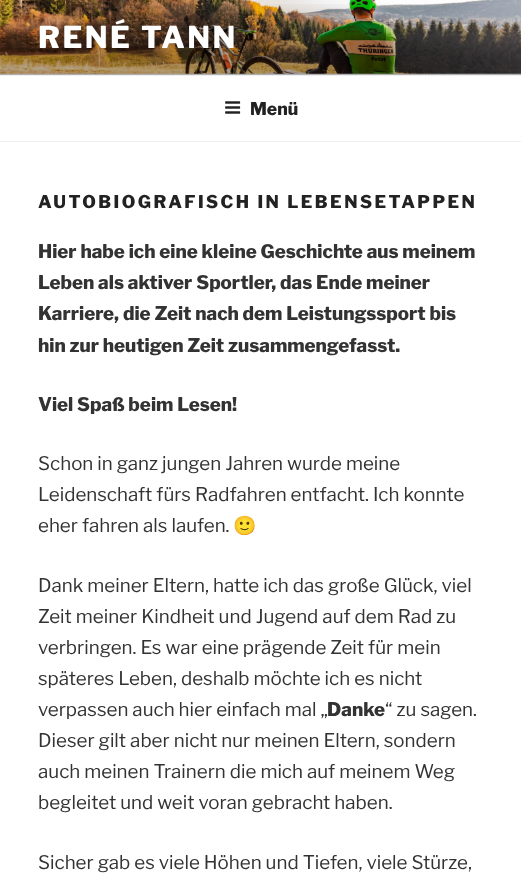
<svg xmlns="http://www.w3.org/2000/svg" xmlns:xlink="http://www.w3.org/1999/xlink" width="521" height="878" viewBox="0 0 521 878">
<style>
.cls-1{font:100 30px Libre Franklin;letter-spacing:2.5px;fill:#ffffff}
.cls-2{font:100 17.5px Libre Franklin;fill:#222222}
.cls-3{font:100 17.5px Libre Franklin;letter-spacing:2.45px;fill:#222222}
.cls-4{font:100 18.75px Libre Franklin;fill:#333333}
.cls-5{font:100 18.75px 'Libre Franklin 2';fill:#333333}
.cls-6{font:18.75px Noto Color Emoji;fill:#333333}
</style>
<defs>
<linearGradient id="g1" gradientUnits="userSpaceOnUse" x1="261" y1="0" x2="261" y2="75"><stop offset="0" stop-color="#000000" stop-opacity="0"/><stop offset="0.75" stop-color="#000000" stop-opacity="0.3"/><stop offset="1" stop-color="#000000" stop-opacity="0.3"/></linearGradient>
</defs>
<rect width="100%" height="100%" fill="#ffffff"/>
<rect fill="#fafafa" x="0" y="73" width="521" height="2"/>
<image xlink:href="image0.png" x="0" y="0" width="521" height="74"/>
<rect fill="url(#g1)" x="0" y="4" width="521" height="71"/>
<rect fill="#eeeeee" x="0" y="75" width="521" height="1"/>
<rect fill="#eeeeee" x="0" y="141" width="521" height="1"/>
<image xlink:href="image1.png" x="225" y="101" width="16" height="13"/>
<text class="cls-1" x="38" y="48">RENÉ TANN</text>
<text class="cls-2" x="250" y="115">Menü</text>
<text class="cls-3" x="38" y="208">AUTOBIOGRAFISCH IN LEBENSETAPPEN</text>
<text class="cls-4"><tspan x="38" y="258">Hier habe ich eine kleine Geschichte aus meinem</tspan><tspan x="38" y="289">Leben als aktiver Sportler, das Ende meiner</tspan><tspan x="38" y="320">Karriere, die Zeit nach dem Leistungssport bis</tspan><tspan x="38" y="352">hin zur heutigen Zeit zusammengefasst.</tspan></text>
<text class="cls-4" x="38" y="411">Viel Spaß beim Lesen!</text>
<text class="cls-5"><tspan x="38" y="470">Schon in ganz jungen Jahren wurde meine</tspan><tspan x="38" y="501">Leidenschaft fürs Radfahren entfacht. Ich konnte</tspan><tspan x="38" y="532">eher fahren als laufen.</tspan></text>
<text class="cls-6" x="233" y="532">🙂</text>
<text class="cls-5"><tspan x="38" y="592">Dank meiner Eltern, hatte ich das große Glück, viel</tspan><tspan x="38" y="623">Zeit meiner Kindheit und Jugend auf dem Rad zu</tspan><tspan x="38" y="654">verbringen. Es war eine prägende Zeit für mein</tspan><tspan x="38" y="685">späteres Leben, deshalb möchte ich es nicht</tspan><tspan x="38" y="716">verpassen auch hier einfach mal „</tspan></text>
<text class="cls-4" x="327" y="716">Danke</text>
<text class="cls-5" x="385" y="716">“ zu sagen.</text>
<text class="cls-5"><tspan x="38" y="747">Dieser gilt aber nicht nur meinen Eltern, sondern</tspan><tspan x="38" y="778">auch meinen Trainern die mich auf meinem Weg</tspan><tspan x="38" y="809">begleitet und weit voran gebracht haben.</tspan></text>
<text class="cls-5" x="38" y="869">Sicher gab es viele Höhen und Tiefen, viele Stürze,</text>
</svg>
